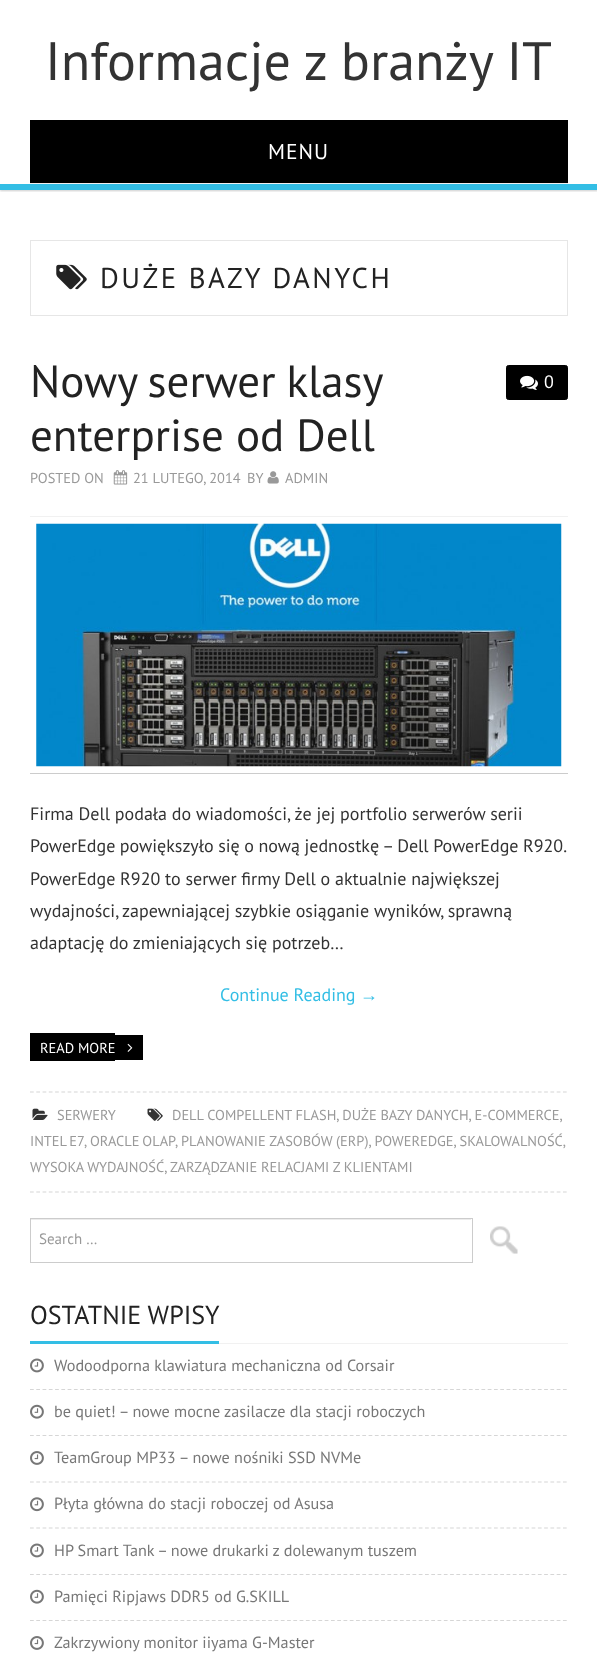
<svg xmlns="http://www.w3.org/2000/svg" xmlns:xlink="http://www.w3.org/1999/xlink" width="597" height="1659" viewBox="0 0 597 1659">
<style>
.cls-1{font:54px PT Sans;fill:#333333}
.cls-2{font:21.5px PT Sans;letter-spacing:1px;fill:#ffffff}
.cls-3{font:28.75px PT Sans;letter-spacing:2.5px;fill:#222222}
.cls-4{font:45px PT Sans;fill:#222222}
.cls-5{font:18px PT Sans;fill:#ffffff}
.cls-6{font:14.4px PT Sans;fill:#999999}
.cls-7{font:18px PT Sans;fill:#333333}
.cls-8{font:18px PT Sans;fill:#33bee5}
.cls-9{font:18px Liberation Sans;fill:#33bee5}
.cls-10{font:14.4px PT Sans;fill:#ffffff}
.cls-11{font:15px PT Sans;fill:#999999}
.cls-12{font:26px PT Sans;fill:#222222}
.cls-13{font:16.2px PT Sans;fill:#777777}
</style>
<defs>
<clipPath id="clip1"><rect x="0" y="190" width="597" height="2"/></clipPath>
</defs>
<rect width="100%" height="100%" fill="#ffffff"/>
<g clip-path="url(#clip1)">
<rect fill="#000000" fill-opacity="0.2" filter="blur(1px)" x="0" y="1" width="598" height="190"/>
</g>
<rect fill="#33bee5" x="0" y="184" width="597" height="6"/>
<rect fill="#000000" x="30" y="120" width="538" height="63"/>
<rect fill="#f1f1f1" x="30" y="183" width="538" height="1"/>
<rect fill="none" stroke="#e6e6e6" x="30.5" y="240.5" width="537" height="75"/>
<image xlink:href="image0.png" x="56" y="264" width="31" height="26"/>
<rect fill="#000000" stroke="#000000" x="506.5" y="365.5" width="61" height="34" rx="2"/>
<image xlink:href="image1.png" x="520" y="375" width="18" height="15"/>
<image xlink:href="image2.png" x="113" y="470" width="15" height="15"/>
<image xlink:href="image3.png" x="267" y="471" width="12" height="13"/>
<rect fill="#000000" fill-opacity="0.2" filter="blur(0.5px)" x="30" y="518" width="538" height="256"/>
<rect fill="#ffffff" x="30" y="517" width="538" height="256"/>
<rect fill="#f1f1f1" x="30" y="516" width="538" height="1"/>
<image xlink:href="image4.png" x="36" y="523" width="526" height="244"/>
<rect fill="#000000" x="30" y="1033" width="85" height="28"/>
<rect fill="#000000" x="115" y="1035" width="28" height="25"/>
<image xlink:href="image5.png" x="127" y="1043" width="6" height="9"/>
<path fill="none" stroke="#d6d6d6" stroke-width="1.2" stroke-dasharray="3.75 2.52" d="M30 1092H567.5"/>
<path fill="none" stroke="#d6d6d6" stroke-width="1.2" stroke-dasharray="3.75 2.52" d="M30 1192H567.5"/>
<image xlink:href="image6.png" x="147" y="1108" width="16" height="13"/>
<image xlink:href="image7.png" x="32" y="1108" width="16" height="12"/>
<rect fill="#ececec" x="31" y="1219" width="440" height="1"/>
<rect fill="none" stroke="#cccccc" x="30.5" y="1218.5" width="442" height="44"/>
<image xlink:href="image8.png" x="490" y="1226" width="28" height="28"/>
<rect fill="#f1f1f1" x="219" y="1343" width="349" height="1"/>
<rect fill="#33bee5" x="30" y="1341" width="189" height="3"/>
<path fill="none" stroke="#d6d6d6" stroke-width="1.2" stroke-dasharray="3.75 2.52" d="M30 1389.5H567.5"/>
<image xlink:href="image9.png" x="30" y="1358" width="14" height="15"/>
<path fill="none" stroke="#d6d6d6" stroke-width="1.2" stroke-dasharray="3.75 2.52" d="M30 1435.5H567.5"/>
<image xlink:href="image10.png" x="30" y="1404" width="14" height="15"/>
<path fill="none" stroke="#d6d6d6" stroke-width="1.2" stroke-dasharray="3.75 2.52" d="M30 1482H567.5"/>
<image xlink:href="image11.png" x="30" y="1451" width="14" height="14"/>
<path fill="none" stroke="#d6d6d6" stroke-width="1.2" stroke-dasharray="3.75 2.52" d="M30 1528H567.5"/>
<image xlink:href="image12.png" x="30" y="1497" width="14" height="15"/>
<path fill="none" stroke="#d6d6d6" stroke-width="1.2" stroke-dasharray="3.75 2.52" d="M30 1574.5H567.5"/>
<image xlink:href="image9.png" x="30" y="1543" width="14" height="15"/>
<path fill="none" stroke="#d6d6d6" stroke-width="1.2" stroke-dasharray="3.75 2.52" d="M30 1620.5H567.5"/>
<image xlink:href="image10.png" x="30" y="1589" width="14" height="15"/>
<image xlink:href="image11.png" x="30" y="1636" width="14" height="14"/>
<text class="cls-1" x="45" y="80">Informacje z branży IT</text>
<text class="cls-2" x="268" y="159">MENU</text>
<text class="cls-3" x="100" y="288">DUŻE BAZY DANYCH</text>
<text class="cls-4"><tspan x="30" y="397" word-spacing="-1">Nowy serwer klasy</tspan><tspan x="30" y="451">enterprise od Dell</tspan></text>
<text class="cls-5" x="544" y="388">0</text>
<text class="cls-6" x="30" y="483">POSTED ON</text>
<text class="cls-6" x="133" y="483">21 LUTEGO, 2014</text>
<text class="cls-6" x="247" y="483">BY</text>
<text class="cls-6" x="285" y="483">ADMIN</text>
<text class="cls-7"><tspan x="30" y="820">Firma Dell podała do wiadomości, że jej portfolio serwerów serii</tspan><tspan x="30" y="852" word-spacing="-0.25">PowerEdge powiększyło się o nową jednostkę – Dell PowerEdge R920.</tspan><tspan x="30" y="885">PowerEdge R920 to serwer firmy Dell o aktualnie największej</tspan><tspan x="30" y="917">wydajności, zapewniającej szybkie osiąganie wyników, sprawną</tspan><tspan x="30" y="949">adaptację do zmieniających się potrzeb…</tspan></text>
<text class="cls-8" x="220" y="1001">Continue Reading</text>
<text class="cls-9" x="360" y="1001">→</text>
<text class="cls-10" x="40" y="1053">READ MORE</text>
<text class="cls-6" x="172" y="1120">DELL COMPELLENT FLASH, DUŻE BAZY DANYCH, E-COMMERCE,</text>
<text class="cls-6" x="30" y="1146" word-spacing="-1">INTEL E7</text>
<text class="cls-6" x="84" y="1146">,</text>
<text class="cls-6" x="90" y="1146" word-spacing="-1">ORACLE OLAP</text>
<text class="cls-6" x="175" y="1146">, PLANOWANIE ZASOBÓW (ERP), POWEREDGE, SKALOWALNOŚĆ,</text>
<text class="cls-6" x="30" y="1172">WYSOKA WYDAJNOŚĆ,</text>
<text class="cls-6" x="170" y="1172">ZARZĄDZANIE RELACJAMI Z KLIENTAMI</text>
<text class="cls-6" x="57" y="1120">SERWERY</text>
<text class="cls-11" x="39" y="1244">Search …</text>
<text class="cls-12" x="30" y="1324">OSTATNIE WPISY</text>
<text class="cls-13" x="54" y="1371">Wodoodporna klawiatura mechaniczna od Corsair</text>
<text class="cls-13" x="54" y="1417">be quiet! – nowe mocne zasilacze dla stacji roboczych</text>
<text class="cls-13" x="54" y="1463">TeamGroup MP33 – nowe nośniki SSD NVMe</text>
<text class="cls-13" x="54" y="1509">Płyta główna do stacji roboczej od Asusa</text>
<text class="cls-13" x="54" y="1556">HP Smart Tank – nowe drukarki z dolewanym tuszem</text>
<text class="cls-13" x="54" y="1602">Pamięci Ripjaws DDR5 od G.SKILL</text>
<text class="cls-13" x="54" y="1648">Zakrzywiony monitor iiyama G-Master</text>
</svg>
